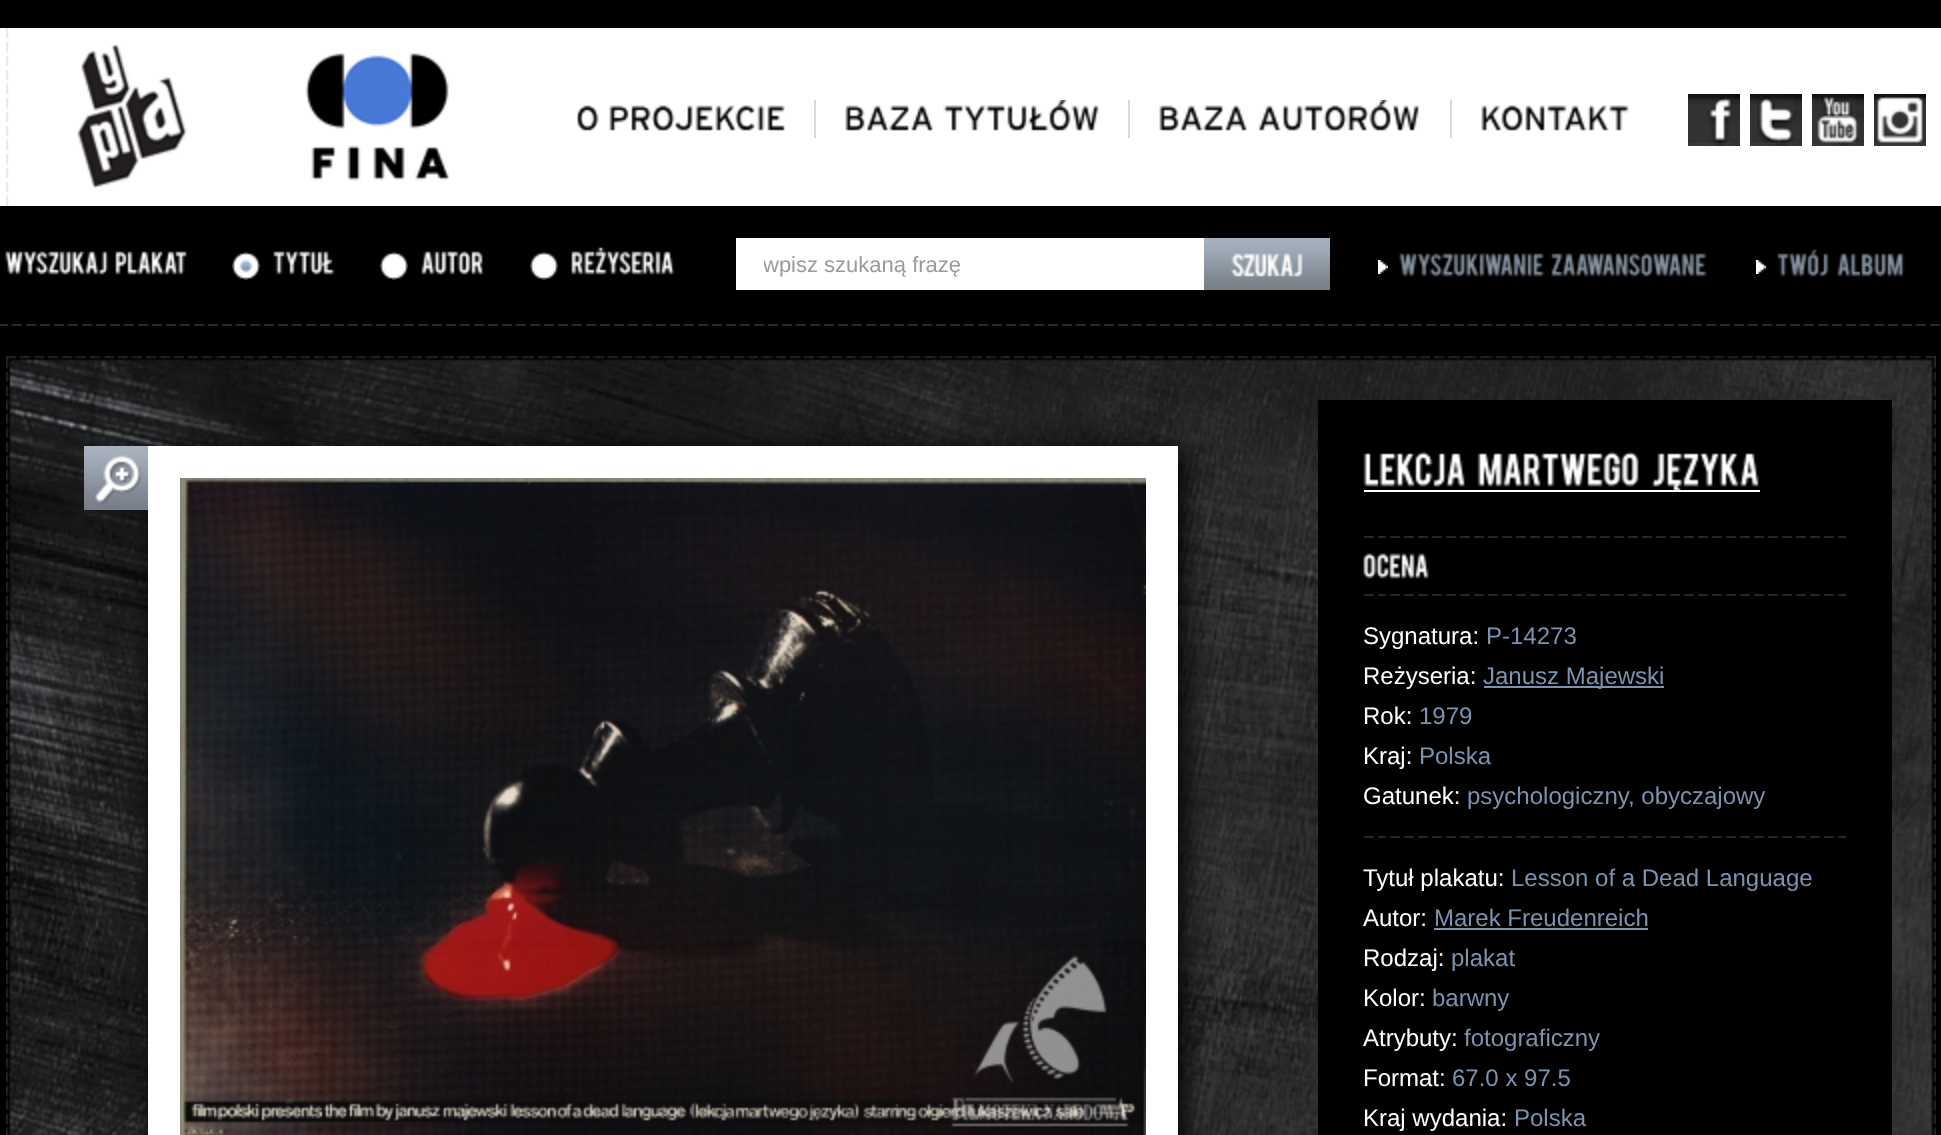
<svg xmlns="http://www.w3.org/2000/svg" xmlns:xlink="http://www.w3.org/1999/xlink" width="1941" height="1135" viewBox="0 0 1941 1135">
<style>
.cls-1{font:22px Liberation Sans;fill:#9a9a9a}
.cls-2{font:24px Liberation Sans;fill:#ffffff}
.cls-3{font:24px Liberation Sans;fill:#7a93af}
</style>
<defs>
<clipPath id="clip1"><rect x="764" y="238" width="412" height="52"/></clipPath>
</defs>
<rect width="100%" height="100%" fill="#000000"/>
<rect fill="#ffffff" x="0" y="28" width="1941" height="178"/>
<image xlink:href="image0.png" x="6" y="28" width="181" height="178"/>
<image xlink:href="image1.png" x="305" y="53" width="144" height="128"/>
<rect fill="#d9d9d9" x="814" y="100" width="2" height="38"/>
<image xlink:href="image2.png" x="576" y="105" width="23" height="26"/>
<image xlink:href="image3.png" x="609" y="105" width="176" height="26"/>
<rect fill="#d9d9d9" x="1128" y="100" width="2" height="38"/>
<image xlink:href="image4.png" x="845" y="105" width="88" height="26"/>
<image xlink:href="image5.png" x="943" y="100" width="156" height="31"/>
<rect fill="#d9d9d9" x="1450" y="100" width="2" height="38"/>
<image xlink:href="image4.png" x="1159" y="105" width="88" height="26"/>
<image xlink:href="image6.png" x="1258" y="100" width="162" height="31"/>
<image xlink:href="image7.png" x="1481" y="105" width="148" height="26"/>
<image xlink:href="image8.png" x="1688" y="94" width="52" height="52"/>
<image xlink:href="image9.png" x="1750" y="94" width="52" height="52"/>
<image xlink:href="image10.png" x="1812" y="94" width="52" height="52"/>
<image xlink:href="image11.png" x="1874" y="94" width="52" height="52"/>
<image xlink:href="image12.png" x="0" y="324" width="1941" height="2"/>
<image xlink:href="image13.png" x="5" y="251" width="104" height="24"/>
<image xlink:href="image14.png" x="115" y="251" width="72" height="24"/>
<image xlink:href="image15.png" x="232" y="252" width="28" height="28"/>
<image xlink:href="image16.png" x="273" y="251" width="62" height="24"/>
<image xlink:href="image17.png" x="380" y="252" width="28" height="28"/>
<image xlink:href="image18.png" x="421" y="251" width="63" height="24"/>
<image xlink:href="image17.png" x="530" y="252" width="28" height="28"/>
<image xlink:href="image19.png" x="571" y="247" width="104" height="28"/>
<rect fill="#ffffff" x="736" y="238" width="468" height="52"/>
<image xlink:href="image20.png" x="1204" y="238" width="126" height="52"/>
<image xlink:href="image21.png" x="1378" y="260" width="10" height="14"/>
<image xlink:href="image22.png" x="1399" y="253" width="146" height="24"/>
<image xlink:href="image23.png" x="1551" y="253" width="156" height="24"/>
<image xlink:href="image24.png" x="1756" y="260" width="10" height="14"/>
<image xlink:href="image25.png" x="1777" y="249" width="52" height="28"/>
<image xlink:href="image26.png" x="1837" y="253" width="68" height="24"/>
<image xlink:href="image27.png" x="6" y="356" width="1930" height="779"/>
<rect fill="#000000" filter="blur(14px)" x="154" y="452" width="1030" height="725"/>
<rect fill="#ffffff" x="148" y="446" width="1030" height="689"/>
<image xlink:href="image28.png" x="84" y="446" width="64" height="64"/>
<image xlink:href="image29.png" x="180" y="478" width="966" height="657"/>
<rect fill="#000000" x="1318" y="400" width="574" height="735"/>
<rect fill="#ffffff" x="1364" y="490" width="396" height="2"/>
<image xlink:href="image30.png" x="1363" y="451" width="102" height="36"/>
<image xlink:href="image31.png" x="1477" y="451" width="162" height="36"/>
<image xlink:href="image32.png" x="1651" y="453" width="108" height="37"/>
<image xlink:href="image33.png" x="1364" y="536" width="482" height="2"/>
<image xlink:href="image34.png" x="1363" y="553" width="66" height="26"/>
<image xlink:href="image33.png" x="1364" y="594" width="482" height="2"/>
<rect fill="#7a93af" x="1484" y="686" width="180" height="2"/>
<image xlink:href="image33.png" x="1364" y="836" width="482" height="2"/>
<rect fill="#7a93af" x="1434" y="928" width="214" height="2"/>
<g clip-path="url(#clip1)">
<text class="cls-1" x="763" y="272">wpisz szukaną frazę</text>
</g>
<text class="cls-2" x="1363" y="644">Sygnatura:</text>
<text class="cls-3" x="1486" y="644">P-14273</text>
<text class="cls-2" x="1363" y="684">Reżyseria:</text>
<text class="cls-3" x="1483" y="684">Janusz Majewski</text>
<text class="cls-2" x="1363" y="724">Rok:</text>
<text class="cls-3" x="1419" y="724">1979</text>
<text class="cls-2" x="1363" y="764">Kraj:</text>
<text class="cls-3" x="1419" y="764">Polska</text>
<text class="cls-2" x="1363" y="804">Gatunek:</text>
<text class="cls-3" x="1467" y="804">psychologiczny, obyczajowy</text>
<text class="cls-2" x="1363" y="886">Tytuł plakatu:</text>
<text class="cls-3" x="1511" y="886">Lesson of a Dead Language</text>
<text class="cls-2" x="1363" y="926">Autor:</text>
<text class="cls-3" x="1434" y="926">Marek Freudenreich</text>
<text class="cls-2" x="1363" y="966">Rodzaj:</text>
<text class="cls-3" x="1451" y="966">plakat</text>
<text class="cls-2" x="1363" y="1006">Kolor:</text>
<text class="cls-3" x="1432" y="1006">barwny</text>
<text class="cls-2" x="1363" y="1046">Atrybuty:</text>
<text class="cls-3" x="1464" y="1046">fotograficzny</text>
<text class="cls-2" x="1363" y="1086">Format:</text>
<text class="cls-3" x="1452" y="1086">67.0 x 97.5</text>
<text class="cls-2" x="1363" y="1126">Kraj wydania:</text>
<text class="cls-3" x="1514" y="1126">Polska</text>
</svg>
